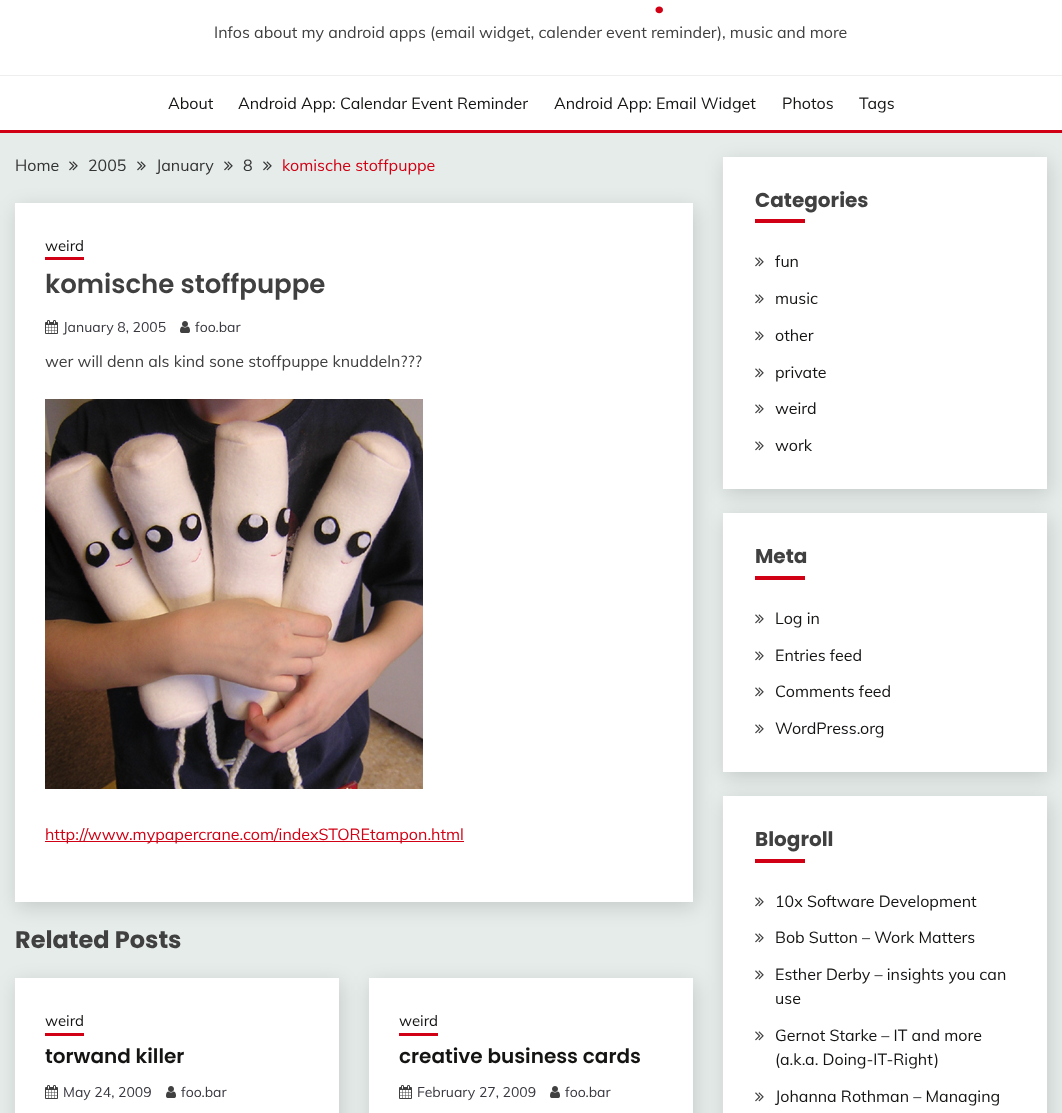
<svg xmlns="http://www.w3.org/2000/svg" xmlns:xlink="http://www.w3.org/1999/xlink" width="1062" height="1113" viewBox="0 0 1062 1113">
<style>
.cls-1{font:bold 37px Poppins;fill:#d10014}
.cls-2{font:16px Muli;fill:#404040}
.cls-3{font:16px Muli;fill:#141413}
.cls-4{font:16px Muli;fill:#333333}
.cls-5{font:16px Muli;fill:#d10014}
.cls-6{font:15px Muli;fill:#141413}
.cls-7{font:600 26px Poppins;fill:#404040}
.cls-8{font:14px Muli;fill:#37373f}
.cls-9{font:bold 24px Poppins;fill:#404040}
.cls-10{font:600 20px Poppins;fill:#141413}
.cls-11{font:bold 20px Poppins;fill:#404040}
</style>
<rect width="100%" height="100%" fill="#e5ece9"/>
<rect fill="#ffffff" x="0" y="0" width="1062" height="130"/>
<rect fill="#eeeeee" x="0" y="75" width="1062" height="1"/>
<rect fill="#000000" fill-opacity="0.14" filter="blur(10px)" x="725" y="162" width="324" height="332"/>
<rect fill="#d10014" x="0" y="130" width="1062" height="3"/>
<image xlink:href="image0.png" x="69" y="161" width="9" height="10"/>
<image xlink:href="image0.png" x="137" y="161" width="9" height="10"/>
<image xlink:href="image0.png" x="224" y="161" width="9" height="10"/>
<image xlink:href="image0.png" x="263" y="161" width="9" height="10"/>
<rect fill="#000000" fill-opacity="0.14" filter="blur(10px)" x="17" y="208" width="678" height="699"/>
<rect fill="#ffffff" x="15" y="203" width="678" height="699"/>
<rect fill="#d10014" x="45" y="257" width="39" height="3"/>
<image xlink:href="image1.png" x="45" y="320" width="13" height="14"/>
<image xlink:href="image2.png" x="180" y="321" width="10" height="12"/>
<image xlink:href="image3.png" x="45" y="399" width="378" height="390"/>
<rect fill="#d10014" x="45" y="841" width="419" height="1"/>
<rect fill="#000000" fill-opacity="0.14" filter="blur(10px)" x="17" y="983" width="324" height="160"/>
<rect fill="#ffffff" x="15" y="978" width="324" height="135"/>
<rect fill="#d10014" x="45" y="1033" width="39" height="3"/>
<image xlink:href="image1.png" x="45" y="1085" width="13" height="14"/>
<image xlink:href="image2.png" x="166" y="1086" width="10" height="12"/>
<rect fill="#000000" fill-opacity="0.14" filter="blur(10px)" x="371" y="983" width="324" height="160"/>
<rect fill="#ffffff" x="369" y="978" width="324" height="135"/>
<rect fill="#d10014" x="399" y="1033" width="39" height="3"/>
<image xlink:href="image1.png" x="399" y="1085" width="13" height="14"/>
<image xlink:href="image2.png" x="550" y="1086" width="10" height="12"/>
<rect fill="#ffffff" x="723" y="157" width="324" height="332"/>
<rect fill="#d10014" x="755" y="219" width="50" height="4"/>
<image xlink:href="image4.png" x="755" y="257" width="9" height="10"/>
<image xlink:href="image4.png" x="755" y="294" width="9" height="10"/>
<image xlink:href="image4.png" x="755" y="331" width="9" height="10"/>
<image xlink:href="image4.png" x="755" y="368" width="9" height="10"/>
<image xlink:href="image4.png" x="755" y="404" width="9" height="10"/>
<image xlink:href="image4.png" x="755" y="441" width="9" height="10"/>
<rect fill="#000000" fill-opacity="0.14" filter="blur(10px)" x="725" y="518" width="324" height="259"/>
<rect fill="#ffffff" x="723" y="513" width="324" height="259"/>
<rect fill="#d10014" x="755" y="576" width="50" height="4"/>
<image xlink:href="image4.png" x="755" y="614" width="9" height="10"/>
<image xlink:href="image4.png" x="755" y="651" width="9" height="10"/>
<image xlink:href="image4.png" x="755" y="687" width="9" height="10"/>
<image xlink:href="image4.png" x="755" y="724" width="9" height="10"/>
<rect fill="#000000" fill-opacity="0.14" filter="blur(10px)" x="725" y="801" width="324" height="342"/>
<rect fill="#ffffff" x="723" y="796" width="324" height="317"/>
<rect fill="#d10014" x="755" y="859" width="50" height="4"/>
<image xlink:href="image4.png" x="755" y="897" width="9" height="10"/>
<image xlink:href="image4.png" x="755" y="933" width="9" height="10"/>
<image xlink:href="image4.png" x="755" y="970" width="9" height="10"/>
<image xlink:href="image4.png" x="755" y="1031" width="9" height="10"/>
<image xlink:href="image4.png" x="755" y="1092" width="9" height="10"/>
<text class="cls-1" x="654" y="13">.</text>
<text class="cls-2" x="214" y="38">Infos about my android apps (email widget, calender event reminder), music and more</text>
<text class="cls-3" x="168" y="109">About</text>
<text class="cls-3" x="238" y="109">Android App: Calendar Event Reminder</text>
<text class="cls-3" x="554" y="109">Android App: Email Widget</text>
<text class="cls-3" x="782" y="109">Photos</text>
<text class="cls-3" x="859" y="109">Tags</text>
<text class="cls-4" x="15" y="171">Home</text>
<text class="cls-4" x="88" y="171">2005</text>
<text class="cls-4" x="156" y="171">January</text>
<text class="cls-4" x="243" y="171">8</text>
<text class="cls-5" x="282" y="171">komische stoffpuppe</text>
<text class="cls-6" x="45" y="251">weird</text>
<text class="cls-7" x="45" y="293">komische stoffpuppe</text>
<text class="cls-8" x="63" y="332">January 8, 2005</text>
<text class="cls-8" x="195" y="332">foo.bar</text>
<text class="cls-2" x="45" y="367">wer will denn als kind sone stoffpuppe knuddeln???</text>
<text class="cls-5" x="45" y="840">http://www.mypapercrane.com/indexSTOREtampon.html</text>
<text class="cls-9" x="15" y="948">Related Posts</text>
<text class="cls-6" x="45" y="1026">weird</text>
<text class="cls-10" x="45" y="1063">torwand killer</text>
<text class="cls-8" x="63" y="1097">May 24, 2009</text>
<text class="cls-8" x="181" y="1097">foo.bar</text>
<text class="cls-6" x="399" y="1026">weird</text>
<text class="cls-10" x="399" y="1063">creative business cards</text>
<text class="cls-8" x="417" y="1097">February 27, 2009</text>
<text class="cls-8" x="565" y="1097">foo.bar</text>
<text class="cls-11" x="755" y="207">Categories</text>
<text class="cls-3" x="775" y="267">fun</text>
<text class="cls-3" x="775" y="304">music</text>
<text class="cls-3" x="775" y="341">other</text>
<text class="cls-3" x="775" y="378">private</text>
<text class="cls-3" x="775" y="414">weird</text>
<text class="cls-3" x="775" y="451">work</text>
<text class="cls-11" x="755" y="563">Meta</text>
<text class="cls-3" x="775" y="624">Log in</text>
<text class="cls-3" x="775" y="661">Entries feed</text>
<text class="cls-3" x="775" y="697">Comments feed</text>
<text class="cls-3" x="775" y="734">WordPress.org</text>
<text class="cls-11" x="755" y="846">Blogroll</text>
<text class="cls-3" x="775" y="907">10x Software Development</text>
<text class="cls-3" x="775" y="943">Bob Sutton – Work Matters</text>
<text class="cls-3"><tspan x="775" y="980">Esther Derby – insights you can</tspan><tspan x="775" y="1004">use</tspan></text>
<text class="cls-3"><tspan x="775" y="1041">Gernot Starke – IT and more</tspan><tspan x="775" y="1065">(a.k.a. Doing-IT-Right)</tspan></text>
<text class="cls-3" x="775" y="1102">Johanna Rothman – Managing</text>
</svg>
